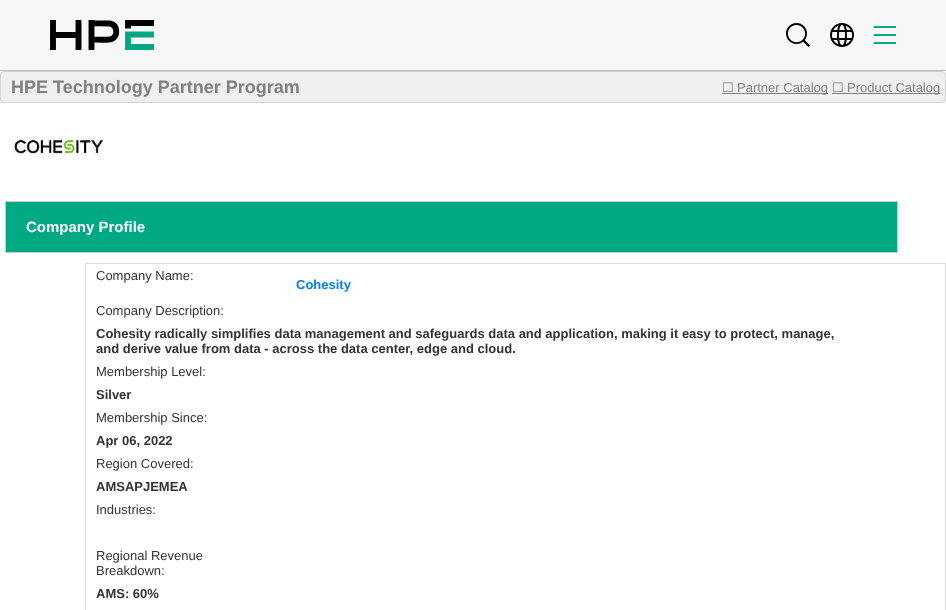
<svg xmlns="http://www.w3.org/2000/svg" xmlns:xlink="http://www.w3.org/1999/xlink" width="946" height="610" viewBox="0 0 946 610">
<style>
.cls-1{font:bold 18px Liberation Sans;fill:#808080}
.cls-2{font:13px DejaVu Sans;fill:#808080}
.cls-3{font:13px Liberation Sans;fill:#808080}
.cls-4{font:bold 15px Liberation Sans;fill:#fcfcfc}
.cls-5{font:13px Liberation Sans;fill:#333333}
.cls-6{font:bold 13px Liberation Sans;fill:#0080ff}
.cls-7{font:bold 13px Liberation Sans;fill:#333333}
</style>
<rect width="100%" height="100%" fill="#ffffff"/>
<rect fill="#bbbbbb" x="0" y="70" width="946" height="1"/>
<rect fill="#f7f7f7" x="0" y="0" width="946" height="70"/>
<path fill="none" stroke="#000000" stroke-width="5.9" d="M53 50V20M78.5 50V20M53 35H75.5M91.5 50V20M91.5 23L110 23.5C117.5 25 118.5 36 111.5 39C107.5 40.5 96 39.5 91.5 39.5M128 28.5V23H154"/>
<path fill="none" stroke="#03a883" stroke-width="5.9" d="M154 47H128V34.5H154"/>
<image xlink:href="image0.png" x="786" y="23" width="24" height="24"/>
<image xlink:href="image1.png" x="830" y="23" width="24" height="24"/>
<rect fill="#01a982" x="874" y="34" width="22" height="2"/>
<rect fill="#01a982" x="874" y="26" width="22" height="2"/>
<rect fill="#01a982" x="874" y="42" width="22" height="2"/>
<rect fill="#efefef" stroke="#d4d4d4" x="0.5" y="71.5" width="945" height="31" rx="3.5"/>
<rect fill="#808080" x="722" y="93" width="106" height="1"/>
<rect fill="#808080" x="832" y="93" width="108" height="1"/>
<image xlink:href="image2.png" x="12" y="133" width="91" height="22"/>
<rect fill="#01a982" stroke="#cccccc" x="5.5" y="201.5" width="892" height="51"/>
<rect fill="none" stroke="#dddddd" x="85.5" y="263.5" width="860" height="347"/>
<text class="cls-1" x="11" y="93">HPE Technology Partner Program</text>
<text class="cls-2" x="722" y="92">☐</text>
<text class="cls-3" x="737" y="92">Partner Catalog</text>
<text class="cls-2" x="832" y="92">☐</text>
<text class="cls-3" x="847" y="92">Product Catalog</text>
<text class="cls-4" x="26" y="232">Company Profile</text>
<text class="cls-5" x="96" y="280">Company Name:</text>
<text class="cls-6" x="296" y="289">Cohesity</text>
<text class="cls-5" x="96" y="315">Company Description:</text>
<text class="cls-7"><tspan x="96" y="338">Cohesity radically simplifies data management and safeguards data and application, making it easy to protect, manage,</tspan><tspan x="96" y="353">and derive value from data - across the data center, edge and cloud.</tspan></text>
<text class="cls-5" x="96" y="376">Membership Level:</text>
<text class="cls-7" x="96" y="399">Silver</text>
<text class="cls-5" x="96" y="422">Membership Since:</text>
<text class="cls-7" x="96" y="445">Apr 06, 2022</text>
<text class="cls-5" x="96" y="468">Region Covered:</text>
<text class="cls-7" x="96" y="491">AMSAPJEMEA</text>
<text class="cls-5" x="96" y="514">Industries:</text>
<text class="cls-5"><tspan x="96" y="560">Regional Revenue</tspan><tspan x="96" y="575">Breakdown:</tspan></text>
<text class="cls-7" x="96" y="598">AMS: 60%</text>
</svg>
